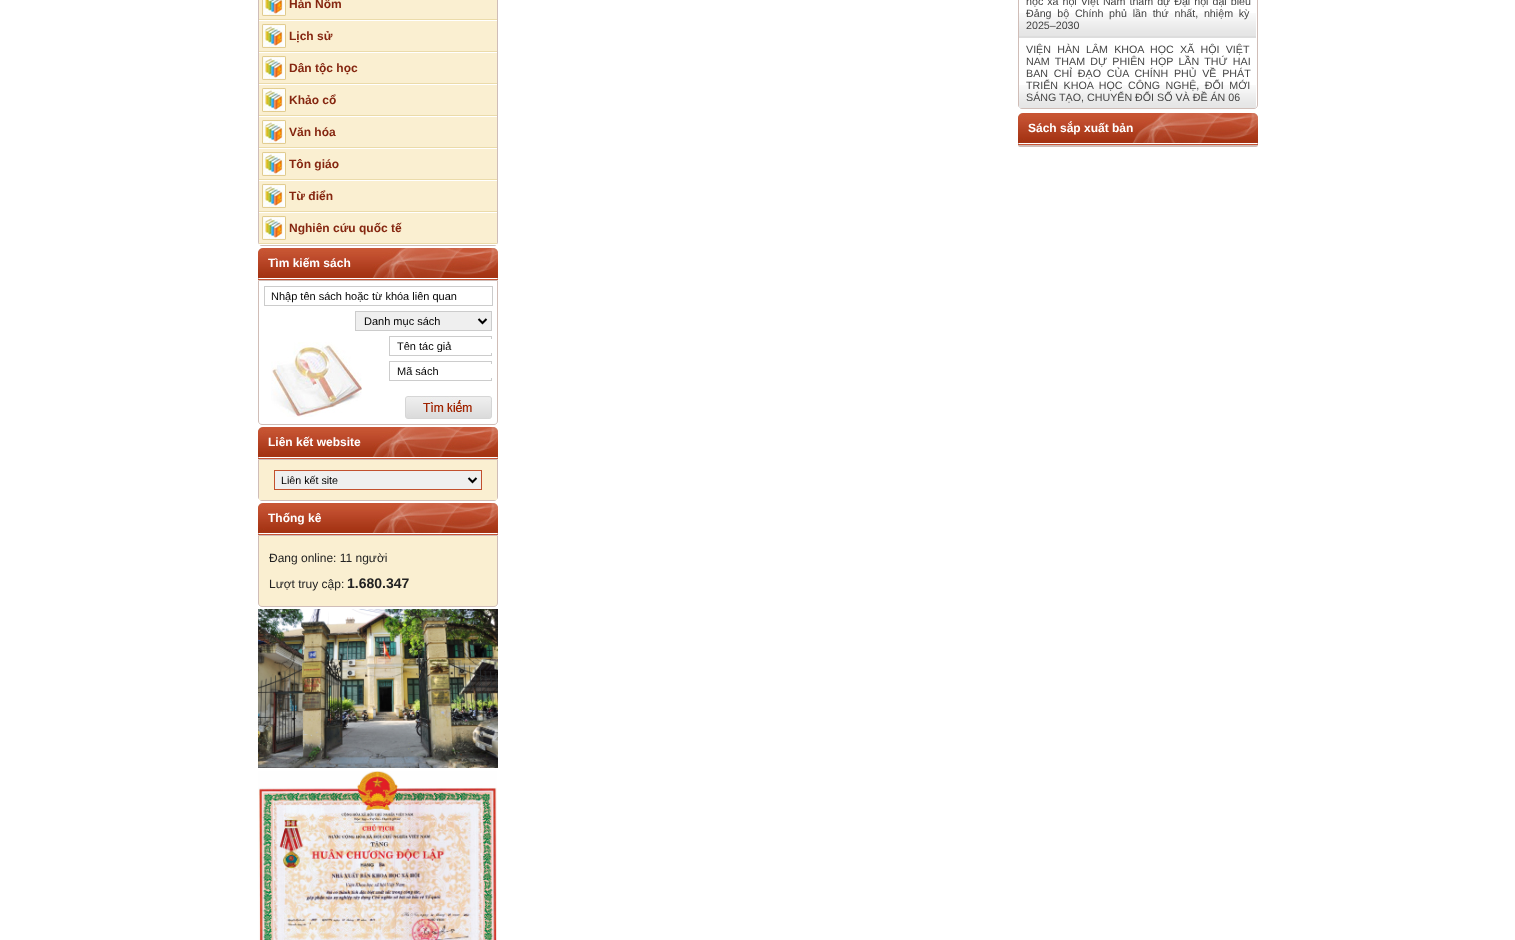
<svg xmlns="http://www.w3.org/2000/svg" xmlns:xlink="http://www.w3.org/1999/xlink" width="1515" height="940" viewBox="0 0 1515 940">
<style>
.cls-1{font:bold 12px Liberation Sans;fill:#852610}
.cls-2{font:bold 12px Liberation Sans;fill:#ffffff}
.cls-3{font:11px Liberation Sans;fill:#000000}
.cls-4{font:10.7px Liberation Sans;fill:#000000}
.cls-5{font:12px Liberation Sans;fill:#222222}
.cls-6{font:bold 14px Liberation Sans;fill:#222222}
.cls-7{font:10.7px Liberation Sans;fill:#444444}
</style>
<defs>
<clipPath id="clip1"><rect x="397" y="340" width="94" height="12"/></clipPath>
</defs>
<rect width="100%" height="100%" fill="#ffffff"/>
<path fill="#cfbdb8" fill-rule="evenodd" d="M258-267H498V242C498 244 496 246 494 246H262C260 246 258 244 258 242ZM259-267H497V242C497 244 496 245 494 245H262C260 245 259 244 259 242Z"/>
<rect fill="#faefd1" x="259" y="0" width="238" height="19"/>
<rect fill="#ebdbaa" x="259" y="19" width="238" height="1"/>
<image xlink:href="image0.png" x="262" y="0" width="24" height="16"/>
<rect fill="#faefd1" x="259" y="21" width="238" height="30"/>
<rect fill="#ebdbaa" x="259" y="51" width="238" height="1"/>
<image xlink:href="image1.png" x="262" y="24" width="24" height="24"/>
<rect fill="#faefd1" x="259" y="53" width="238" height="30"/>
<rect fill="#ebdbaa" x="259" y="83" width="238" height="1"/>
<image xlink:href="image1.png" x="262" y="56" width="24" height="24"/>
<rect fill="#faefd1" x="259" y="85" width="238" height="30"/>
<rect fill="#ebdbaa" x="259" y="115" width="238" height="1"/>
<image xlink:href="image1.png" x="262" y="88" width="24" height="24"/>
<rect fill="#faefd1" x="259" y="117" width="238" height="30"/>
<rect fill="#ebdbaa" x="259" y="147" width="238" height="1"/>
<image xlink:href="image1.png" x="262" y="120" width="24" height="24"/>
<rect fill="#faefd1" x="259" y="149" width="238" height="30"/>
<rect fill="#ebdbaa" x="259" y="179" width="238" height="1"/>
<image xlink:href="image1.png" x="262" y="152" width="24" height="24"/>
<rect fill="#faefd1" x="259" y="181" width="238" height="30"/>
<rect fill="#ebdbaa" x="259" y="211" width="238" height="1"/>
<image xlink:href="image1.png" x="262" y="184" width="24" height="24"/>
<rect fill="#ffffff" x="259" y="244" width="238" height="1"/>
<rect fill="#faefd1" x="259" y="213" width="238" height="30"/>
<rect fill="#ebdbaa" x="259" y="243" width="238" height="1"/>
<image xlink:href="image1.png" x="262" y="216" width="24" height="24"/>
<image xlink:href="image2.png" x="258" y="248" width="112" height="32"/>
<image xlink:href="image3.png" x="370" y="248" width="128" height="32"/>
<path fill="none" stroke="#d0bdb7" d="M258.5 280.5H497.5V421C497.5 423 496 424.5 494 424.5H262C260 424.5 258.5 423 258.5 421Z"/>
<image xlink:href="image4.png" x="271" y="342" width="91" height="75"/>
<rect fill="none" stroke="#cccccc" x="264.5" y="286.5" width="228" height="19"/>
<rect fill="#efefef" stroke="#cccccc" x="355.5" y="311.5" width="136" height="19"/>
<path fill="none" stroke="#000000" stroke-width="2" d="M478.5 319L482.5 323L486.5 319"/>
<rect fill="none" stroke="#cccccc" x="389.5" y="336.5" width="102" height="19"/>
<rect fill="#ffffff" x="491" y="339" width="1" height="14"/>
<rect fill="none" stroke="#cccccc" x="389.5" y="361.5" width="102" height="19"/>
<rect fill="#ffffff" x="491" y="364" width="1" height="14"/>
<image xlink:href="image5.png" x="405" y="396" width="87" height="23"/>
<image xlink:href="image2.png" x="258" y="427" width="112" height="32"/>
<image xlink:href="image3.png" x="370" y="427" width="128" height="32"/>
<path fill="none" stroke="#d0bdb7" d="M258.5 459.5H497.5V497C497.5 499 496 500.5 494 500.5H262C260 500.5 258.5 499 258.5 497Z"/>
<rect fill="#faefd1" x="259" y="460" width="238" height="40"/>
<rect fill="#efefef" stroke="#c2502e" x="274.5" y="470.5" width="207" height="19"/>
<path fill="none" stroke="#000000" stroke-width="2" d="M468.5 478L472.5 482L476.5 478"/>
<image xlink:href="image2.png" x="258" y="503" width="112" height="32"/>
<image xlink:href="image3.png" x="370" y="503" width="128" height="32"/>
<path fill="#faefd1" stroke="#d0bdb7" d="M258.5 535.5H497.5V603C497.5 605 496 606.5 494 606.5H262C260 606.5 258.5 605 258.5 603Z"/>
<image xlink:href="image6.png" x="258" y="609" width="240" height="159"/>
<image xlink:href="image7.png" x="258" y="771" width="239" height="169"/>
<path fill="none" stroke="#d0bdb7" d="M1018.5-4.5H1257.5V105C1257.5 107 1256 108.5 1254 108.5H1022C1020 108.5 1018.5 107 1018.5 105Z"/>
<image xlink:href="image8.png" x="1019" y="13" width="237" height="23"/>
<rect fill="#dddddd" x="1019" y="36" width="237" height="2"/>
<image xlink:href="image8.png" x="1019" y="85" width="237" height="23"/>
<image xlink:href="image2.png" x="1018" y="113" width="112" height="32"/>
<image xlink:href="image3.png" x="1130" y="113" width="128" height="32"/>
<path fill="#d0bdb7" d="M1018 145H1258C1258 146 1257 147 1256 147H1020C1019 147 1018 146 1018 145Z"/>
<text class="cls-1" x="289" y="8">Hán Nôm</text>
<text class="cls-1" x="289" y="40">Lịch sử</text>
<text class="cls-1" x="289" y="72">Dân tộc học</text>
<text class="cls-1" x="289" y="104">Khảo cổ</text>
<text class="cls-1" x="289" y="136">Văn hóa</text>
<text class="cls-1" x="289" y="168">Tôn giáo</text>
<text class="cls-1" x="289" y="200">Từ điển</text>
<text class="cls-1" x="289" y="232">Nghiên cứu quốc tế</text>
<text class="cls-2" x="268" y="267">Tìm kiếm sách</text>
<text class="cls-3" x="271" y="300">Nhập tên sách hoặc từ khóa liên quan</text>
<text class="cls-3" x="364" y="325">Danh mục sách</text>
<g clip-path="url(#clip1)">
<text class="cls-3" x="397" y="350">Tên tác giả</text>
</g>
<text class="cls-3" x="397" y="375">Mã sách</text>
<text class="cls-2" x="268" y="446">Liên kết website</text>
<text class="cls-4" x="281" y="484">Liên kết site</text>
<text class="cls-2" x="268" y="522">Thống kê</text>
<text class="cls-5" x="269" y="562">Đang online: 11 người</text>
<text class="cls-5" x="269" y="588">Lượt truy cập:</text>
<text class="cls-6" x="347" y="588">1.680.347</text>
<text class="cls-7"><tspan x="1026" y="5" word-spacing="1">học xã hội Việt Nam tham dự Đại hội đại biểu</tspan><tspan x="1026" y="17" word-spacing="2.75">Đảng bộ Chính phủ lần thứ nhất, nhiệm kỳ</tspan><tspan x="1026" y="29">2025–2030</tspan></text>
<text class="cls-7"><tspan x="1026" y="53" word-spacing="3.25">VIỆN HÀN LÂM KHOA HỌC XÃ HỘI VIỆT</tspan><tspan x="1026" y="65" word-spacing="2.25">NAM THAM DỰ PHIÊN HỌP LẦN THỨ HAI</tspan><tspan x="1026" y="77" word-spacing="2.75">BAN CHỈ ĐẠO CỦA CHÍNH PHỦ VỀ PHÁT</tspan><tspan x="1026" y="89" word-spacing="2.5">TRIỂN KHOA HỌC CÔNG NGHỆ, ĐỔI MỚI</tspan><tspan x="1026" y="101">SÁNG TẠO, CHUYỂN ĐỔI SỐ VÀ ĐỀ ÁN 06</tspan></text>
<text class="cls-2" x="1028" y="132">Sách sắp xuất bản</text>
</svg>
